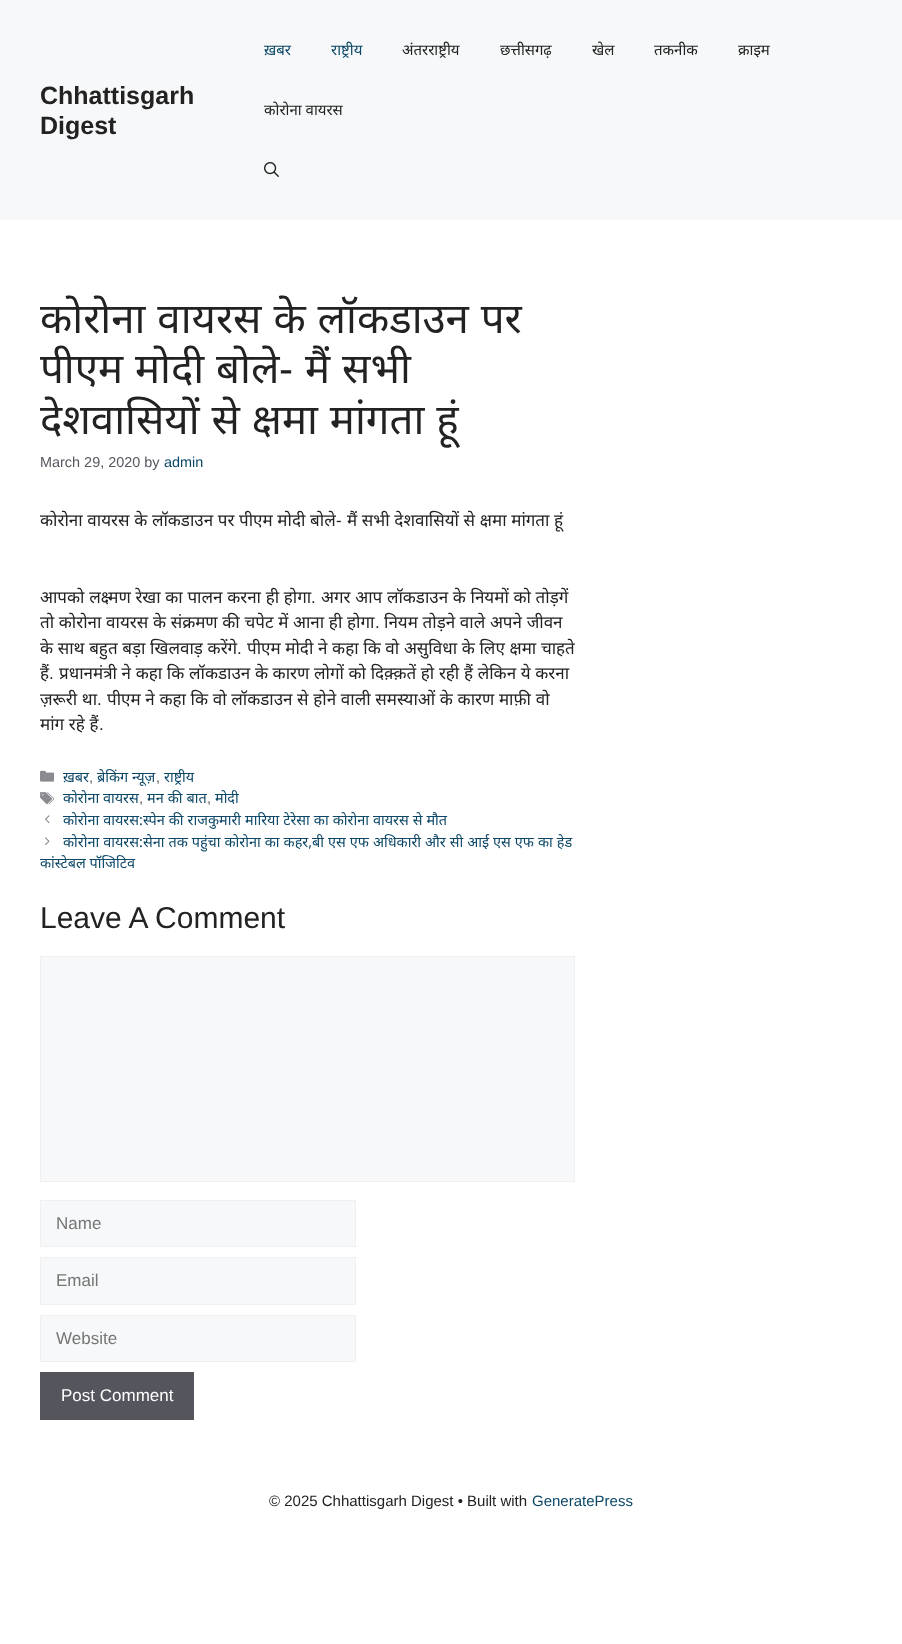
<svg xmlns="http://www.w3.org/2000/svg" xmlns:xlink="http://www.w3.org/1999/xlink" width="902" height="1644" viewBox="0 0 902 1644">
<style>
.cls-1{font:bold 25px Liberation Sans;fill:#222222}
.cls-2{font:15px Noto Sans;fill:#0c4767}
.cls-3{font:15px Noto Sans;fill:#222222}
.cls-4{font:42px Noto Sans;fill:#222222}
.cls-5{font:42px Liberation Sans;fill:#222222}
.cls-6{font:14.45px Liberation Sans;fill:#575760}
.cls-7{font:14.45px Liberation Sans;fill:#0c4767}
.cls-8{font:17px Noto Sans;fill:#222222}
.cls-9{font:17px Liberation Sans;fill:#222222}
.cls-10{font:14.45px Noto Sans;fill:#0c4767}
.cls-11{font:30px Liberation Sans;fill:#222222}
.cls-12{font:17px Liberation Sans;fill:#757575}
.cls-13{font:17px Liberation Sans;fill:#ffffff}
.cls-14{font:15px Liberation Sans;fill:#222222}
.cls-15{font:15px Liberation Sans;fill:#0c4767}
</style>
<defs>
<clipPath id="clip1"><rect x="40" y="810" width="535" height="65"/></clipPath>
</defs>
<rect width="100%" height="100%" fill="#ffffff"/>
<rect fill="#f7f8f9" x="0" y="0" width="902" height="220"/>
<image xlink:href="image0.png" x="264" y="162" width="15" height="15"/>
<image xlink:href="image1.png" x="40" y="770" width="14" height="12"/>
<image xlink:href="image2.png" x="40" y="792" width="14" height="13"/>
<image xlink:href="image3.png" x="45" y="815" width="5" height="9"/>
<image xlink:href="image4.png" x="45" y="837" width="5" height="9"/>
<rect fill="#f7f8f9" stroke="#f0f0f0" x="40.5" y="956.5" width="534" height="225"/>
<rect fill="#f7f8f9" stroke="#f0f0f0" x="40.5" y="1200.5" width="315" height="46"/>
<rect fill="#f7f8f9" stroke="#f0f0f0" x="40.5" y="1257.5" width="315" height="47"/>
<rect fill="#f7f8f9" stroke="#f0f0f0" x="40.5" y="1315.5" width="315" height="46"/>
<rect fill="#55555e" x="40" y="1372" width="154" height="48"/>
<text class="cls-1"><tspan x="40" y="104">Chhattisgarh</tspan><tspan x="40" y="134">Digest</tspan></text>
<text class="cls-2" x="264" y="55">ख़बर</text>
<text class="cls-2" x="331" y="55">राष्ट्रीय</text>
<text class="cls-3" x="402" y="55">अंतरराष्ट्रीय</text>
<text class="cls-3" x="500" y="55">छत्तीसगढ़</text>
<text class="cls-3" x="592" y="55">खेल</text>
<text class="cls-3" x="654" y="55">तकनीक</text>
<text class="cls-3" x="738" y="55">क्राइम</text>
<text class="cls-3" x="264" y="115">कोरोना वायरस</text>
<text class="cls-4"><tspan x="40" y="333" word-spacing="1">कोरोना वायरस के लॉकडाउन पर</tspan><tspan x="40" y="383" word-spacing="1">पीएम मोदी बोले</tspan></text>
<text class="cls-5" x="279" y="383">-</text>
<text class="cls-4" x="305" y="383" word-spacing="1">मैं सभी</text>
<text class="cls-4" x="40" y="434" word-spacing="1">देशवासियों से क्षमा मांगता हूं</text>
<text class="cls-6" x="40" y="467">March 29, 2020 by</text>
<text class="cls-7" x="164" y="467">admin</text>
<text class="cls-8" x="40" y="526" word-spacing="0.25">कोरोना वायरस के लॉकडाउन पर पीएम मोदी बोले</text>
<text class="cls-9" x="336" y="526">-</text>
<text class="cls-8" x="347" y="526" word-spacing="0.25">मैं सभी देशवासियों से क्षमा मांगता हूं</text>
<text class="cls-8" x="40" y="603" word-spacing="0.25">आपको लक्ष्मण रेखा का पालन करना ही होगा</text>
<text class="cls-9" x="311" y="603">.</text>
<text class="cls-8" x="321" y="603" word-spacing="0.25">अगर आप लॉकडाउन के नियमों को तोड़गें</text>
<text class="cls-8" x="40" y="628" word-spacing="0.25">तो कोरोना वायरस के संक्रमण की चपेट में आना ही होगा</text>
<text class="cls-9" x="375" y="628">.</text>
<text class="cls-8" x="384" y="628" word-spacing="0.25">नियम तोड़ने वाले अपने जीवन</text>
<text class="cls-8" x="40" y="654" word-spacing="0.25">के साथ बहुत बड़ा खिलवाड़ करेंगे</text>
<text class="cls-9" x="237" y="654">.</text>
<text class="cls-8" x="247" y="654" word-spacing="0.25">पीएम मोदी ने कहा कि वो असुविधा के लिए क्षमा चाहते</text>
<text class="cls-8" x="40" y="679">हैं</text>
<text class="cls-9" x="49" y="679">.</text>
<text class="cls-8" x="59" y="679" word-spacing="0.25">प्रधानमंत्री ने कहा कि लॉकडाउन के कारण लोगों को दिक़्क़तें हो रही हैं लेकिन ये करना</text>
<text class="cls-8" x="40" y="705" word-spacing="0.25">ज़रूरी था</text>
<text class="cls-9" x="97" y="705">.</text>
<text class="cls-8" x="107" y="705" word-spacing="0.25">पीएम ने कहा कि वो लॉकडाउन से होने वाली समस्याओं के कारण माफ़ी वो</text>
<text class="cls-8" x="40" y="730" word-spacing="0.25">मांग रहे हैं</text>
<text class="cls-9" x="99" y="730">.</text>
<text class="cls-10" x="63" y="782">ख़बर</text>
<text class="cls-10" x="164" y="782">राष्ट्रीय</text>
<text class="cls-6" x="89" y="782">,</text>
<text class="cls-10" x="97" y="782">ब्रेकिंग न्यूज़</text>
<text class="cls-6" x="156" y="782">,</text>
<text class="cls-10" x="63" y="803">कोरोना वायरस</text>
<text class="cls-6" x="139" y="803">,</text>
<text class="cls-10" x="147" y="803" word-spacing="0.25">मन की बात</text>
<text class="cls-6" x="207" y="803">,</text>
<text class="cls-10" x="215" y="803">मोदी</text>
<text class="cls-10"><tspan x="63" y="825" word-spacing="0.25">कोरोना वायरस:स्‍पेन की राजकुमारी मारिया टेरेसा का कोरोना वायरस से मौत</tspan><tspan x="63" y="847" word-spacing="0.25">कोरोना वायरस:सेना तक पहुंचा कोरोना का कहर,बी एस एफ अधिकारी और सी आई एस एफ का हेड</tspan></text>
<g clip-path="url(#clip1)">
<text class="cls-10" x="40" y="868">कांस्टेबल पॉजिटिव</text>
</g>
<text class="cls-11" x="40" y="928">Leave A Comment</text>
<text class="cls-12" x="56" y="1229">Name</text>
<text class="cls-12" x="56" y="1286">Email</text>
<text class="cls-12" x="56" y="1344">Website</text>
<text class="cls-13" x="61" y="1401">Post Comment</text>
<text class="cls-14" x="269" y="1506">© 2025 Chhattisgarh Digest • Built with</text>
<text class="cls-15" x="532" y="1506">GeneratePress</text>
</svg>
